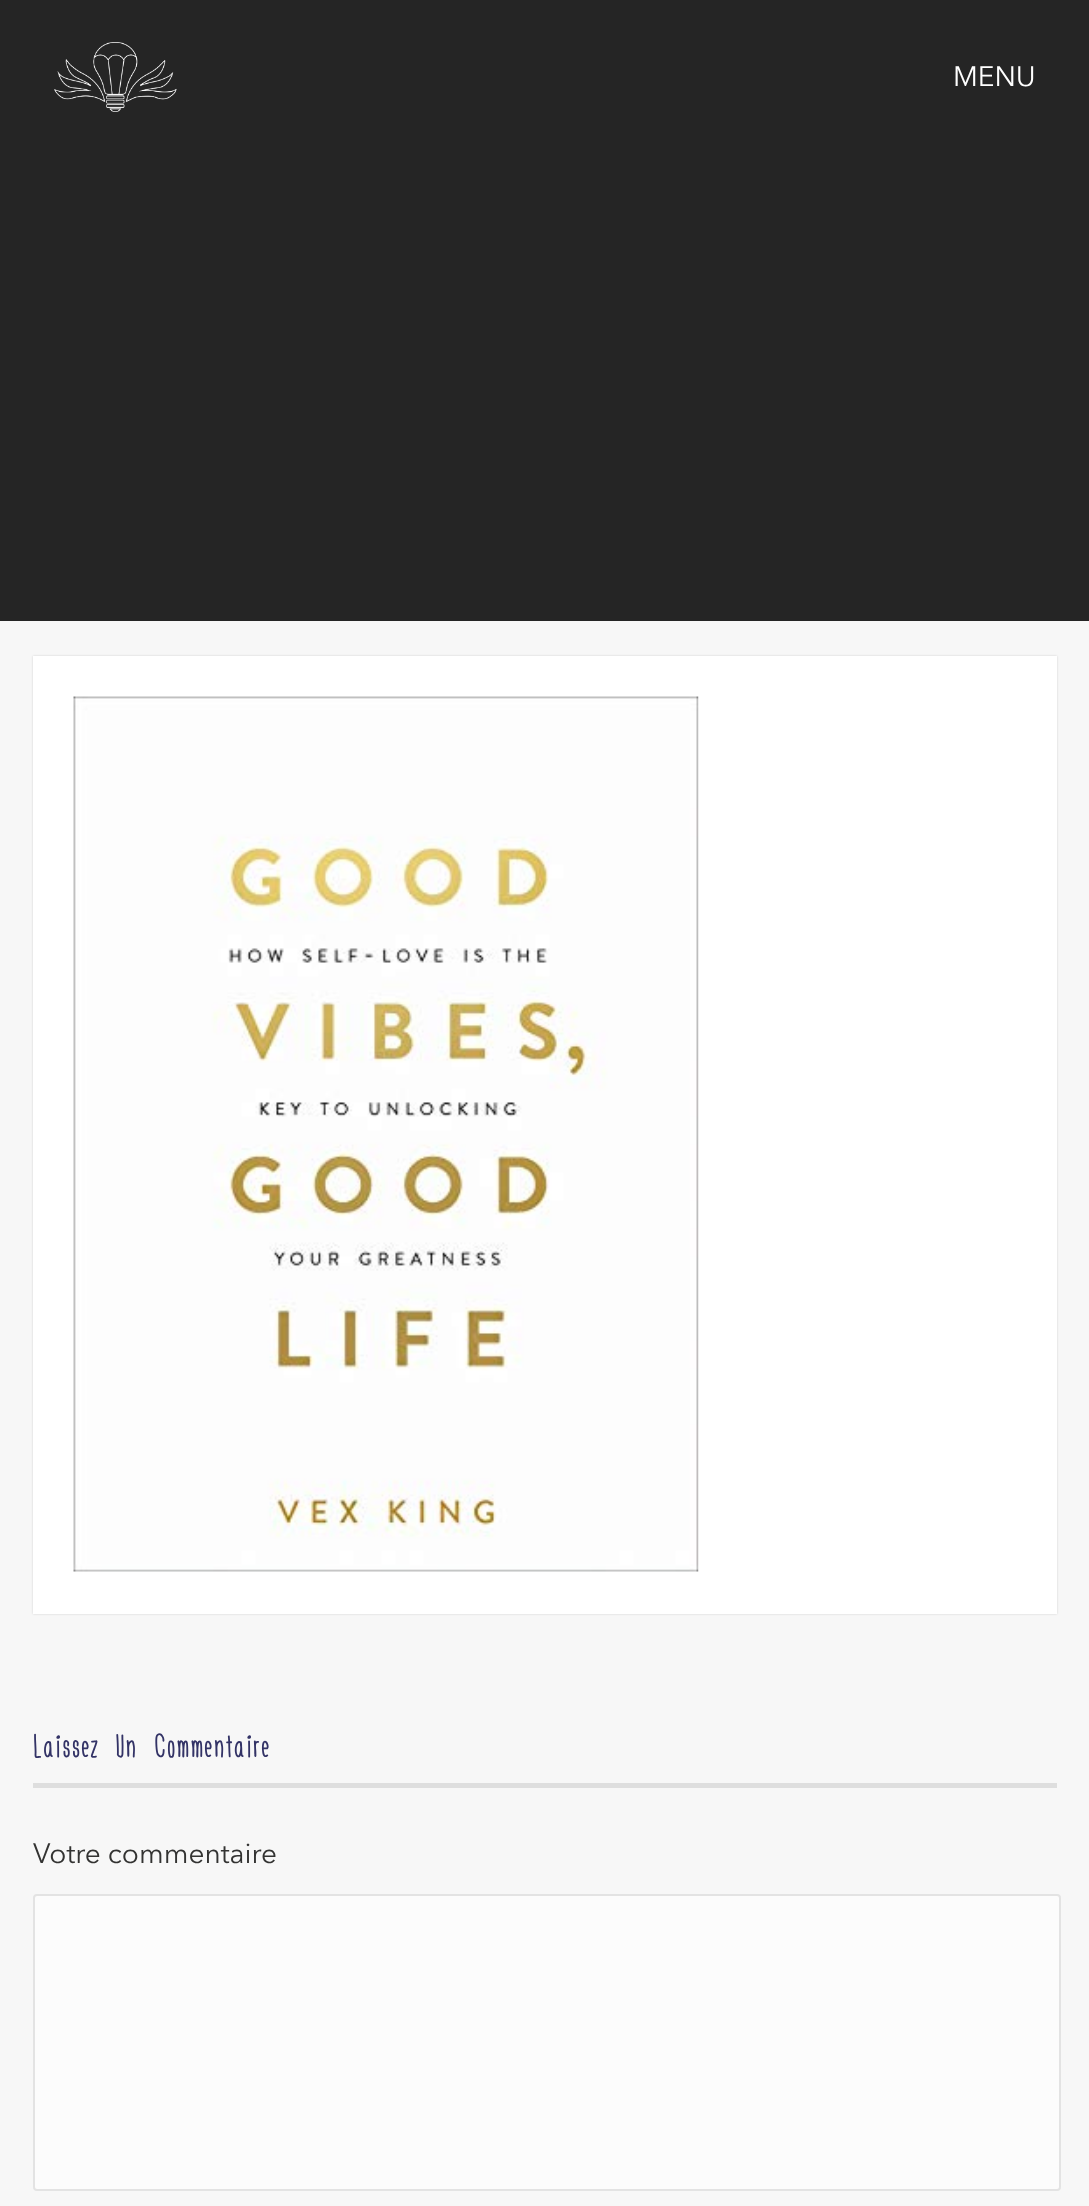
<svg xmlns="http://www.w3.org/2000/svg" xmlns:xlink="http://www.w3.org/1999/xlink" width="1089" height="2206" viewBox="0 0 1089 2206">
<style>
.cls-1{font:28px Avenir Next;fill:#ffffff}
.cls-2{font:31.5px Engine;fill:#333366}
.cls-3{font:28px Avenir Next;fill:#333332}
</style>
<rect width="100%" height="100%" fill="#f7f7f7"/>
<rect fill="#252525" x="0" y="0" width="1089" height="621"/>
<image xlink:href="image0.png" x="54" y="42" width="123" height="70"/>
<rect fill="#000000" fill-opacity="0.15" filter="blur(1px)" x="33" y="656" width="1024" height="958"/>
<rect fill="#ffffff" x="33" y="656" width="1024" height="958"/>
<image xlink:href="image1.png" x="73" y="696" width="626" height="876"/>
<rect fill="#dedede" x="33" y="1783" width="1024" height="5"/>
<rect fill="#fcfcfc" stroke="#e3e3e3" stroke-width="2" x="34" y="1895" width="1026" height="295" rx="3"/>
<text class="cls-1" x="953" y="86">MENU</text>
<text class="cls-2" x="33" y="1757">Laissez Un Commentaire</text>
<text class="cls-3" x="33" y="1863">Votre commentaire</text>
</svg>
